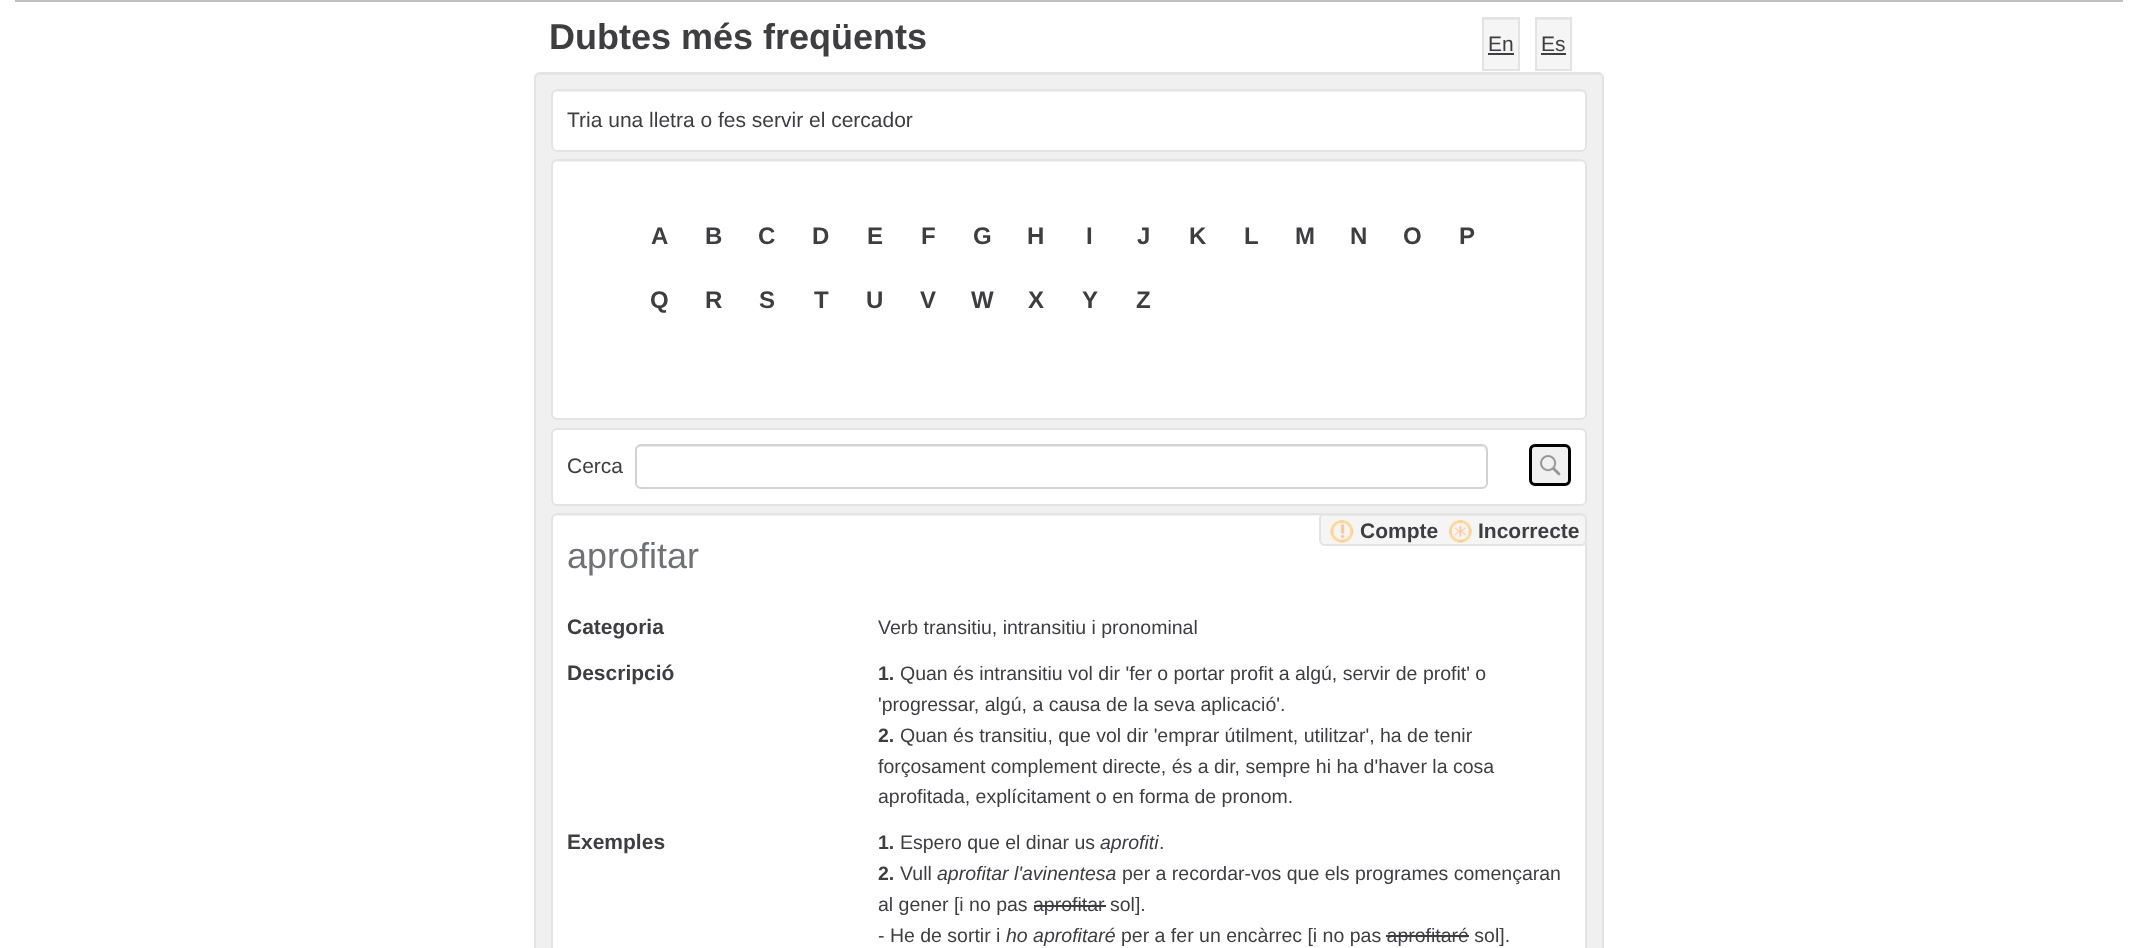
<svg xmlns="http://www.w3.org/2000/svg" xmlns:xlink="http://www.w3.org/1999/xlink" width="2137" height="948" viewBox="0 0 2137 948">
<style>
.cls-1{font:bold 36px Liberation Sans;fill:#3e3d40}
.cls-2{font:21px Liberation Sans;fill:#3e3d40}
.cls-3{font:bold 24px Liberation Sans;fill:#3e3d40}
.cls-4{font:bold 21px Liberation Sans;fill:#3e3d40}
.cls-5{font:36px Liberation Sans;fill:#707173}
.cls-6{font:19.5px Liberation Sans;fill:#3e3d40}
.cls-7{font:bold 19.5px Liberation Sans;fill:#3e3d40}
.cls-8{font:italic 19.5px Liberation Sans;fill:#3e3d40}
</style>
<rect width="100%" height="100%" fill="#ffffff"/>
<rect fill="#c0c0c0" x="15" y="0" width="2108" height="2"/>
<rect fill="#f0f0f0" x="534" y="72" width="1070" height="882" rx="6"/>
<path fill="#e4e4e4" d="M540 75H1598C1600 75 1602 77 1602 80C1602 77 1600 74 1597 74H541C538 74 536 77 536 80C536 77 538 75 540 75Z"/>
<rect fill="none" stroke="#e3e3e3" stroke-width="2" x="535" y="73" width="1068" height="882" rx="5"/>
<rect fill="#f5f5f5" x="1484" y="20" width="34" height="49"/>
<rect fill="#e9e9e9" x="1484" y="19" width="34" height="1"/>
<rect fill="none" stroke="#e3e3e3" stroke-width="2" x="1483" y="18" width="36" height="52"/>
<rect fill="#3e3d40" x="1488" y="53" width="26" height="2"/>
<rect fill="#f5f5f5" x="1537" y="20" width="33" height="49"/>
<rect fill="#e9e9e9" x="1536" y="19" width="35" height="1"/>
<rect fill="none" stroke="#e3e3e3" stroke-width="2" x="1536" y="18" width="35" height="52"/>
<rect fill="#3e3d40" x="1541" y="53" width="25" height="2"/>
<rect fill="#ffffff" x="551" y="89" width="1036" height="63" rx="6"/>
<path fill="#f2f2f2" d="M556 92H1581C1583 92 1586 94 1586 96C1586 93 1584 90 1581 90H557C554 90 552 93 552 96C552 94 554 92 556 92Z"/>
<rect fill="none" stroke="#e3e3e3" stroke-width="2" x="552" y="90" width="1034" height="61" rx="5"/>
<rect fill="#ffffff" x="551" y="159" width="1036" height="261" rx="6"/>
<path fill="#f2f2f2" d="M556 162H1581C1583 162 1586 164 1586 166C1586 163 1584 161 1581 161H557C554 161 552 163 552 166C552 164 554 162 556 162Z"/>
<rect fill="none" stroke="#e3e3e3" stroke-width="2" x="552" y="160" width="1034" height="259" rx="5"/>
<rect fill="#ffffff" x="551" y="428" width="1036" height="78" rx="6"/>
<path fill="#f2f2f2" d="M556 430H1581C1583 430 1586 433 1586 435C1586 432 1584 429 1581 429H557C554 429 552 432 552 435C552 433 554 430 556 430Z"/>
<rect fill="none" stroke="#e3e3e3" stroke-width="2" x="552" y="429" width="1034" height="76" rx="5"/>
<path fill="#ececec" d="M640 447H1482C1484 447 1486 449 1486 452V484L1485 487C1486 486 1487 484 1487 483V451C1487 448 1485 446 1482 446H641C638 446 636 448 636 451V452C636 449 638 447 640 447Z"/>
<rect fill="none" stroke="#d2d2d3" stroke-width="2" x="636" y="445" width="851" height="43" rx="5"/>
<rect fill="#f0f0f0" stroke="#000000" stroke-width="3" x="1530.5" y="445.5" width="39" height="39" rx="4.5"/>
<image xlink:href="image0.png" x="1540" y="455" width="21" height="21"/>
<rect fill="#ffffff" x="551" y="513" width="1036" height="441" rx="6"/>
<path fill="#f2f2f2" d="M556 516H1581C1583 516 1586 518 1586 520C1586 517 1584 515 1581 515H557C554 515 552 517 552 520C552 518 554 516 556 516Z"/>
<rect fill="none" stroke="#e3e3e3" stroke-width="2" x="552" y="514" width="1034" height="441" rx="5"/>
<rect fill="#f5f5f5" x="1319" y="513" width="268" height="33" rx="6"/>
<path fill="#e9e9e9" d="M1324 516H1581C1583 516 1586 518 1586 520C1586 517 1584 515 1581 515H1325C1322 515 1320 517 1320 520C1320 518 1322 516 1324 516Z"/>
<rect fill="none" stroke="#e3e3e3" stroke-width="2" x="1320" y="514" width="266" height="31" rx="5"/>
<image xlink:href="image1.png" x="1330" y="520" width="23" height="23"/>
<image xlink:href="image2.png" x="1449" y="520" width="23" height="23"/>
<text class="cls-1" x="549" y="49">Dubtes més freqüents</text>
<text class="cls-2" x="1488" y="51">En</text>
<text class="cls-2" x="1541" y="51">Es</text>
<text class="cls-2" x="567" y="127">Tria una lletra o fes servir el cercador</text>
<text class="cls-3" x="651" y="244">A</text>
<text class="cls-3" x="705" y="244">B</text>
<text class="cls-3" x="758" y="244">C</text>
<text class="cls-3" x="812" y="244">D</text>
<text class="cls-3" x="867" y="244">E</text>
<text class="cls-3" x="921" y="244">F</text>
<text class="cls-3" x="973" y="244">G</text>
<text class="cls-3" x="1027" y="244">H</text>
<text class="cls-3" x="1086" y="244">I</text>
<text class="cls-3" x="1137" y="244">J</text>
<text class="cls-3" x="1189" y="244">K</text>
<text class="cls-3" x="1244" y="244">L</text>
<text class="cls-3" x="1295" y="244">M</text>
<text class="cls-3" x="1350" y="244">N</text>
<text class="cls-3" x="1403" y="244">O</text>
<text class="cls-3" x="1459" y="244">P</text>
<text class="cls-3" x="650" y="308">Q</text>
<text class="cls-3" x="705" y="308">R</text>
<text class="cls-3" x="759" y="308">S</text>
<text class="cls-3" x="814" y="308">T</text>
<text class="cls-3" x="866" y="308">U</text>
<text class="cls-3" x="920" y="308">V</text>
<text class="cls-3" x="971" y="308">W</text>
<text class="cls-3" x="1028" y="308">X</text>
<text class="cls-3" x="1082" y="308">Y</text>
<text class="cls-3" x="1136" y="308">Z</text>
<text class="cls-2" x="567" y="473">Cerca</text>
<text class="cls-4" x="1360" y="538">Compte</text>
<text class="cls-4" x="1478" y="538">Incorrecte</text>
<text class="cls-5" x="567" y="568">aprofitar</text>
<text class="cls-4" x="567" y="634">Categoria</text>
<text class="cls-6" x="878" y="634">Verb transitiu, intransitiu i pronominal</text>
<text class="cls-4" x="567" y="680">Descripció</text>
<text class="cls-7" x="878" y="680">1.</text>
<text class="cls-6" x="900" y="680">Quan és intransitiu vol dir 'fer o portar profit a algú, servir de profit' o</text>
<text class="cls-6" x="878" y="711">'progressar, algú, a causa de la seva aplicació'.</text>
<text class="cls-7" x="878" y="742">2.</text>
<text class="cls-6" x="900" y="742">Quan és transitiu, que vol dir 'emprar útilment, utilitzar', ha de tenir</text>
<text class="cls-6"><tspan x="878" y="773">forçosament complement directe, és a dir, sempre hi ha d'haver la cosa</tspan><tspan x="878" y="803">aprofitada, explícitament o en forma de pronom.</tspan></text>
<text class="cls-4" x="567" y="849">Exemples</text>
<text class="cls-7" x="878" y="849">1.</text>
<text class="cls-6" x="900" y="849">Espero que el dinar us</text>
<text class="cls-8" x="1100" y="849">aprofiti</text>
<text class="cls-6" x="1159" y="849">.</text>
<text class="cls-7" x="878" y="880">2.</text>
<text class="cls-6" x="900" y="880">Vull</text>
<text class="cls-8" x="937" y="880">aprofitar l'avinentesa</text>
<text class="cls-6" x="1122" y="880">per a recordar-vos que els programes començaran</text>
<text class="cls-6" x="878" y="911">al gener [i no pas aprofitar sol].</text>
<rect fill="#3d3d40" x="1034" y="905" width="72" height="2"/>
<text class="cls-6" x="878" y="942">- He de sortir i</text>
<text class="cls-8" x="1006" y="942">ho aprofitaré</text>
<text class="cls-6" x="1121" y="942">per a fer un encàrrec [i no pas aprofitaré sol].</text>
<rect fill="#3d3d40" x="1386" y="935" width="83" height="2"/>
</svg>
